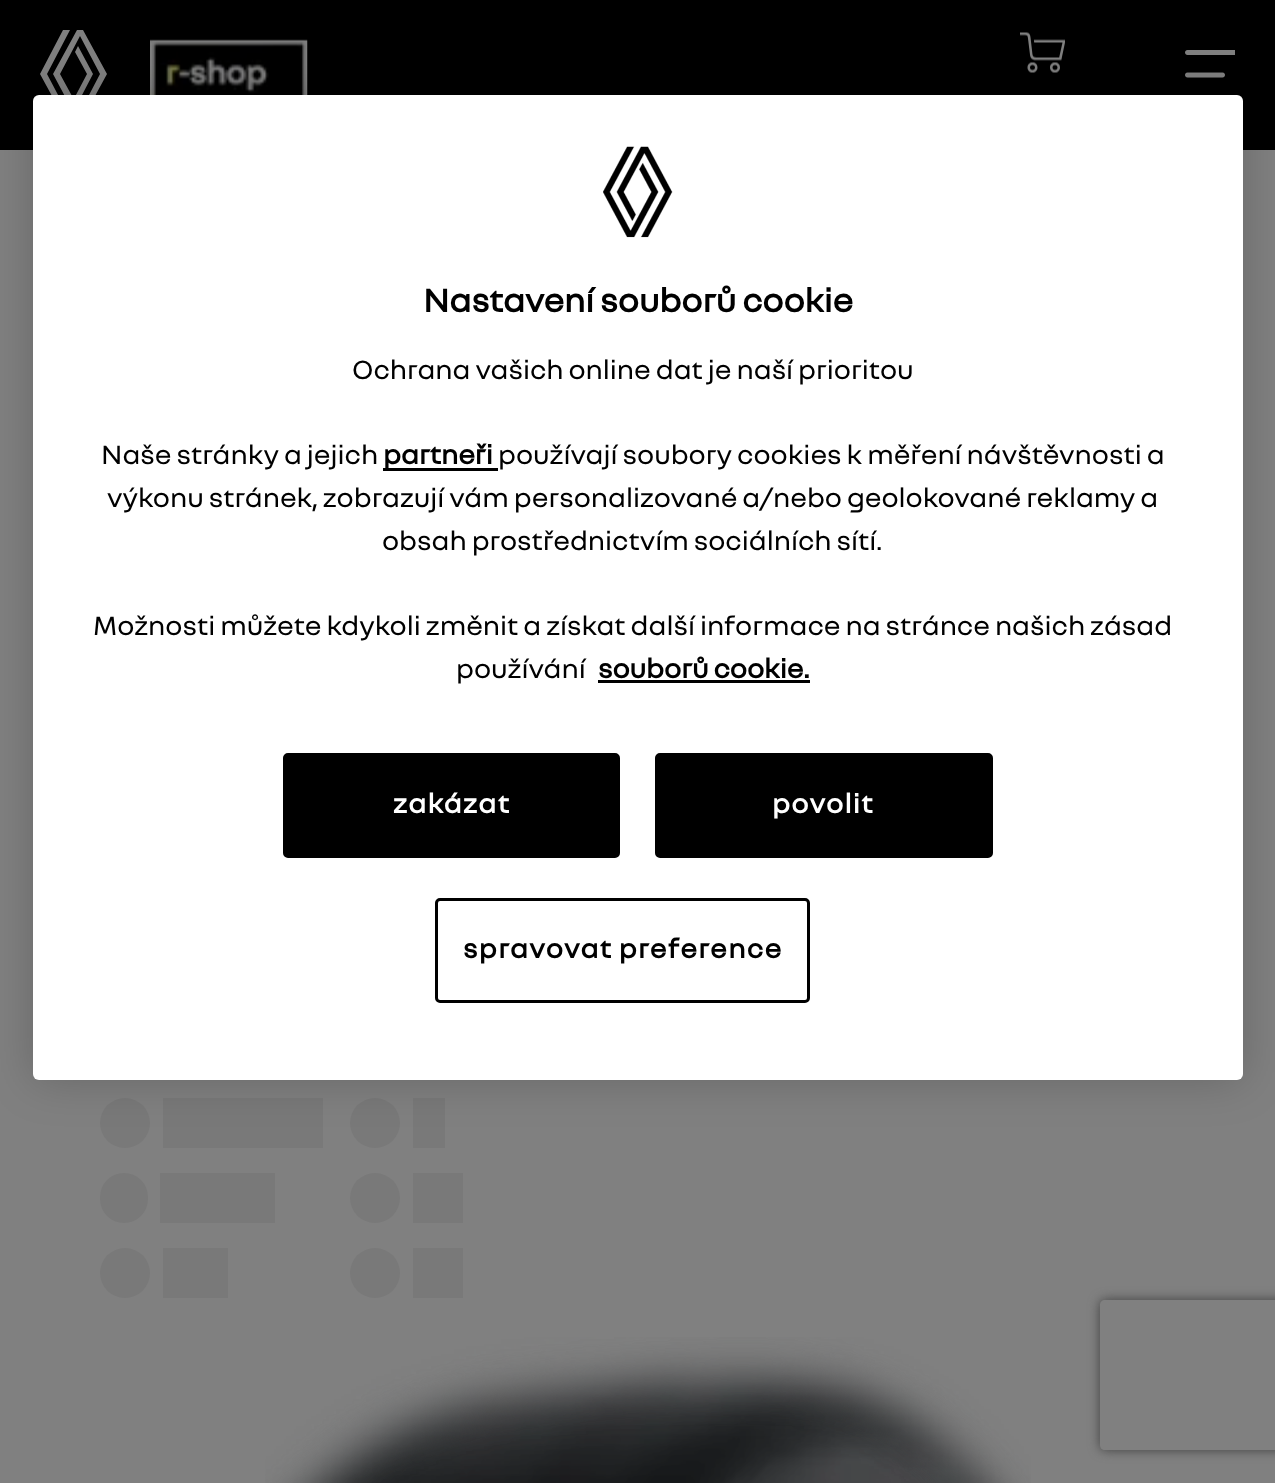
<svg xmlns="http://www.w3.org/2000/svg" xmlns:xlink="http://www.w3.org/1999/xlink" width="1275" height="1483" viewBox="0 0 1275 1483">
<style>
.cls-1{font:bold 35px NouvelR;fill:#000000}
.cls-2{font:28.45px NouvelR;fill:#000000}
.cls-3{font:bold 28.45px NouvelR;fill:#000000}
.cls-4{font:bold 28.45px NouvelR;letter-spacing:1.4px;fill:#ffffff}
.cls-5{font:bold 28.45px NouvelR;letter-spacing:1.4px;fill:#000000}
</style>
<defs>
<clipPath id="clip1"><path d="M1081 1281H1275V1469H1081ZM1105 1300H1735C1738 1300 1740 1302 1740 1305V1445C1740 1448 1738 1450 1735 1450H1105C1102 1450 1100 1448 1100 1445V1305C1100 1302 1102 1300 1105 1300Z" clip-rule="evenodd"/></clipPath>
</defs>
<rect width="100%" height="100%" fill="#808080"/>
<rect fill="#000000" x="0" y="0" width="1275" height="150"/>
<path fill="#808080" d="M93 74L70 118H64L40 74L63 30H70L47 74L67 112L87 74L75 52L78 46ZM83 30H77L53 74L68 102L72 96L60 74L80 36L100 74L77 118H83L107 74Z"/>
<image xlink:href="image0.png" x="150" y="39" width="158" height="56"/>
<image xlink:href="image1.png" x="1185" y="50" width="50" height="28"/>
<image xlink:href="image2.png" x="1020" y="32" width="45" height="41"/>
<circle fill="#797979" cx="125" cy="1123" r="25"/>
<rect fill="#797979" x="163" y="1098" width="160" height="50"/>
<rect fill="#797979" x="100" y="1173" width="48" height="50" rx="24"/>
<rect fill="#797979" x="160" y="1173" width="115" height="50"/>
<circle fill="#797979" cx="125" cy="1273" r="25"/>
<rect fill="#797979" x="163" y="1248" width="65" height="50"/>
<circle fill="#797979" cx="375" cy="1123" r="25"/>
<rect fill="#797979" x="413" y="1098" width="32" height="50"/>
<circle fill="#797979" cx="375" cy="1198" r="25"/>
<rect fill="#797979" x="413" y="1173" width="50" height="50"/>
<circle fill="#797979" cx="375" cy="1273" r="25"/>
<rect fill="#797979" x="413" y="1248" width="50" height="50"/>
<image xlink:href="image3.png" x="265" y="1337" width="766" height="146"/>
<rect fill="#000000" fill-opacity="0.2" filter="blur(22.5px)" x="33" y="95" width="1210" height="985" rx="6"/>
<rect fill="#ffffff" x="33" y="95" width="1210" height="985" rx="6"/>
<image xlink:href="image4.png" x="603" y="146" width="70" height="92"/>
<rect fill="#000000" x="383" y="468" width="115" height="3"/>
<rect fill="#000000" x="598" y="680" width="212" height="3"/>
<rect fill="#000000" stroke="#000000" stroke-width="3" x="284.5" y="754.5" width="334" height="102" rx="3.5"/>
<rect fill="#000000" stroke="#000000" stroke-width="3" x="656.5" y="754.5" width="335" height="102" rx="3.5"/>
<rect fill="none" stroke="#000000" stroke-width="3" x="436.5" y="899.5" width="372" height="102" rx="3.5"/>
<g clip-path="url(#clip1)">
<rect fill="#404040" filter="blur(6px)" x="1100" y="1300" width="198" height="150" rx="5"/>
</g>
<text class="cls-1" x="423" y="312">Nastavení souborů cookie</text>
<text class="cls-2" x="352" y="379">Ochrana vašich online dat je naší prioritou</text>
<text class="cls-2" x="101" y="464">Naše stránky a jejich</text>
<text class="cls-3" x="383" y="464">partneři</text>
<text class="cls-2" x="498" y="464">používají soubory cookies k měření návštěvnosti a</text>
<text class="cls-2" x="107" y="507">výkonu stránek, zobrazují vám personalizované a/nebo geolokované reklamy a</text>
<text class="cls-2" x="382" y="550">obsah prostřednictvím sociálních sítí.</text>
<text class="cls-2" x="93" y="635">Možnosti můžete kdykoli změnit a získat další informace na stránce našich zásad</text>
<text class="cls-2" x="456" y="678">používání</text>
<text class="cls-3" x="598" y="678">souborů cookie.</text>
<text class="cls-4" x="393" y="813">zakázat</text>
<text class="cls-4" x="772" y="813">povolit</text>
<text class="cls-5" x="463" y="958">spravovat preference</text>
</svg>
